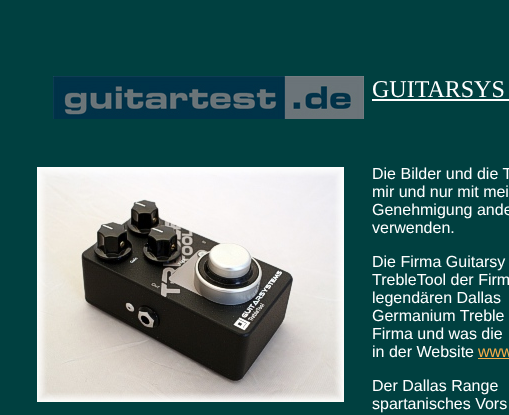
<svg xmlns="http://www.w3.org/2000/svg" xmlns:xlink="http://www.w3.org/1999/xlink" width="509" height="415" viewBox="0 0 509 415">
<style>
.cls-1{font:24px Liberation Serif;fill:#ffffff}
.cls-2{font:16px Liberation Sans;fill:#ffffff}
.cls-3{font:16px Liberation Sans;fill:#f5ac49}
</style>
<rect width="100%" height="100%" fill="#004040"/>
<image xlink:href="image0.png" x="53" y="76" width="311" height="43"/>
<rect fill="#ffffff" x="372" y="99" width="137" height="2"/>
<image xlink:href="image1.png" x="37" y="167" width="307" height="235"/>
<rect fill="#f5ac49" x="478" y="358" width="31" height="1"/>
<text class="cls-1" x="372" y="97">GUITARSYS</text>
<text class="cls-2"><tspan x="372" y="179">Die Bilder und die T</tspan><tspan x="372" y="197">mir und nur mit mei</tspan><tspan x="372" y="215">Genehmigung ande</tspan><tspan x="372" y="233">verwenden.</tspan></text>
<text class="cls-2"><tspan x="372" y="267">Die Firma Guitarsy</tspan><tspan x="372" y="285">TrebleTool der Firm</tspan><tspan x="372" y="303">legendären Dallas</tspan><tspan x="372" y="321">Germanium Treble</tspan><tspan x="372" y="339">Firma und was die</tspan><tspan x="372" y="357">in der Website</tspan></text>
<text class="cls-3" x="478" y="357">www</text>
<text class="cls-2"><tspan x="372" y="391">Der Dallas Range</tspan><tspan x="372" y="409">spartanisches Vors</tspan></text>
</svg>
